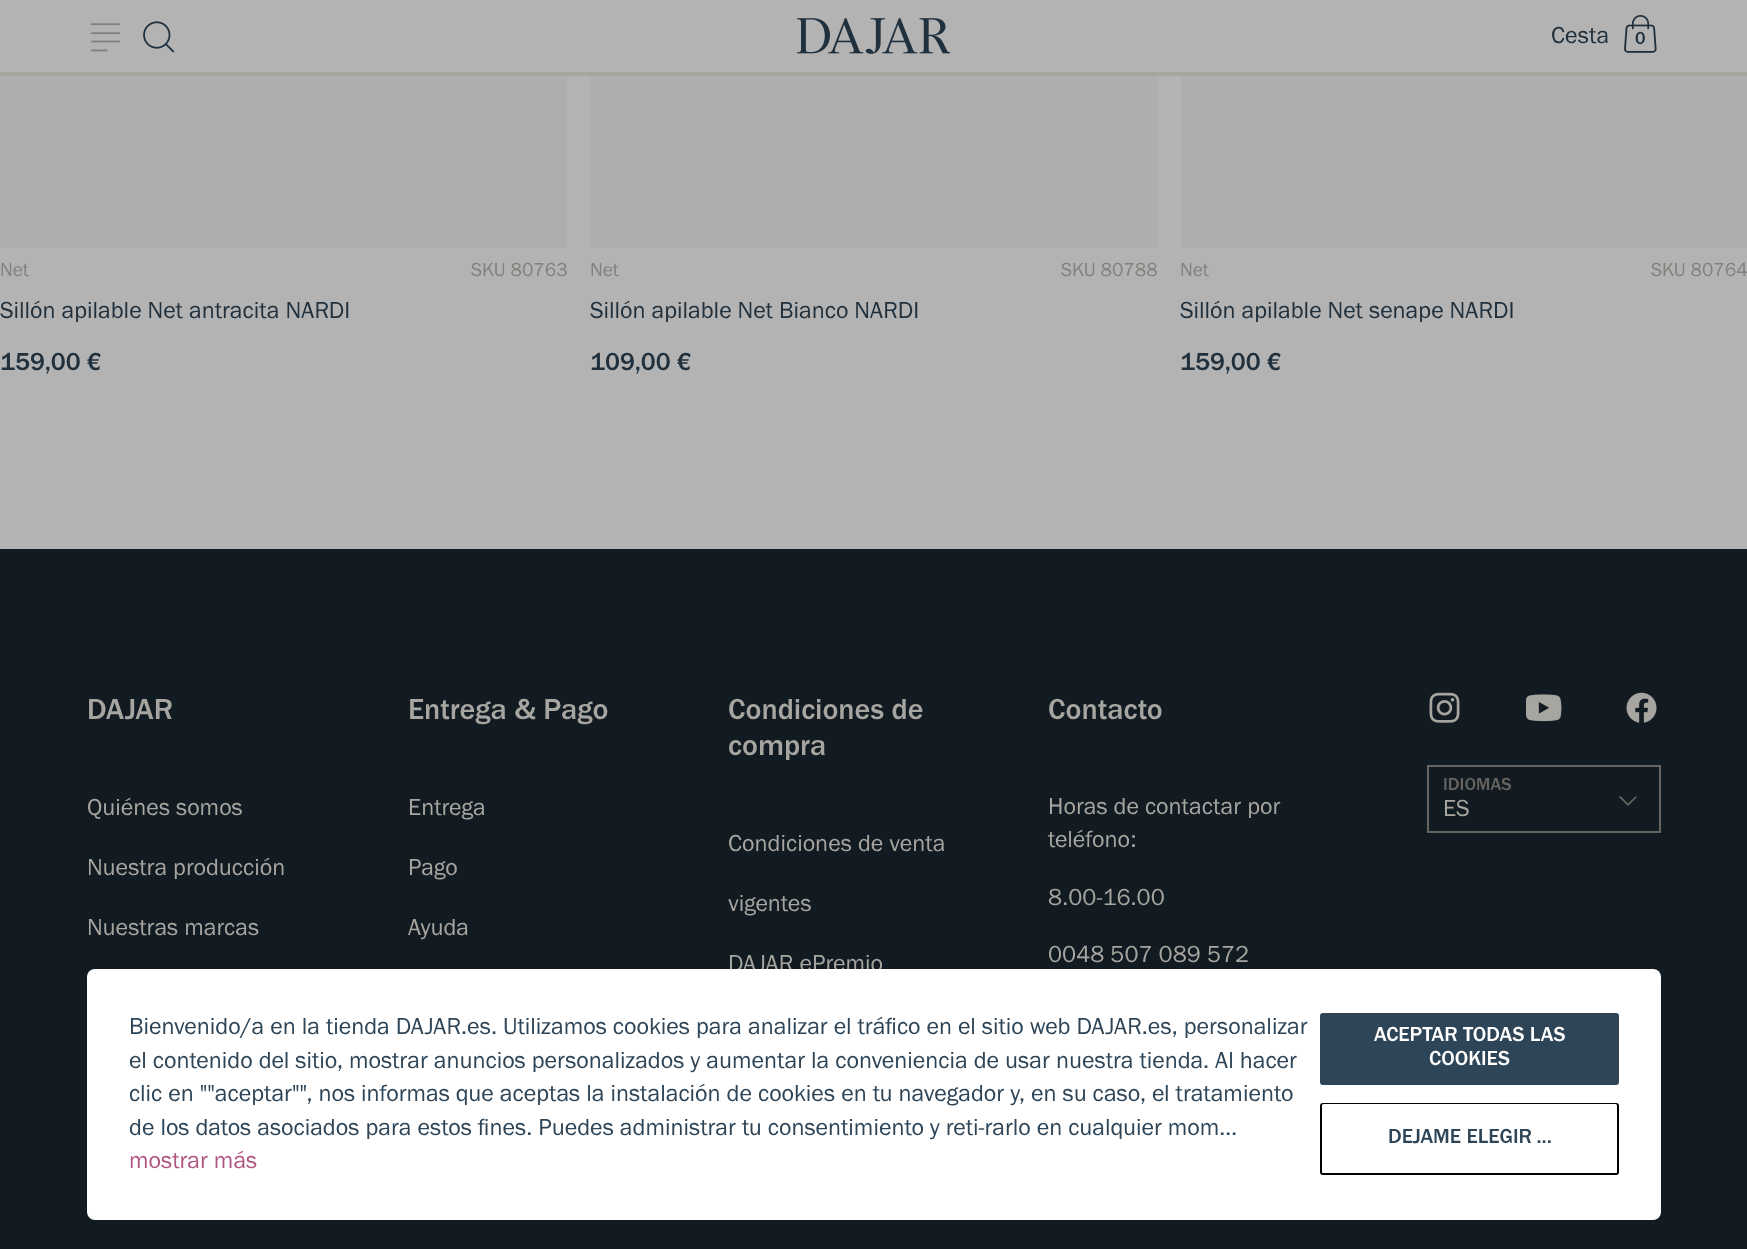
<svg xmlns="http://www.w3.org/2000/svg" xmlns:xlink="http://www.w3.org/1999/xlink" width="1747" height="1249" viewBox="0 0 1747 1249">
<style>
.cls-1{font:24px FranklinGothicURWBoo;fill:#20303d}
.cls-2{font:18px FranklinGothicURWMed;fill:#20303d}
.cls-3{font:19.5px FranklinGothicURWBoo;fill:#81807c}
.cls-4{font:25.5px FranklinGothicURWMed;fill:#20303d}
.cls-5{font:30px FranklinGothicURWMed;fill:#a7a5a0}
.cls-6{font:24px FranklinGothicURWBoo;fill:#a7a5a0}
.cls-7{font:18px FranklinGothicURWMed;fill:#656461}
.cls-8{font:24px FranklinGothicURWBoo;fill:#2e4557}
.cls-9{font:24px FranklinGothicURWBoo;fill:#b05781}
.cls-10{font:21px FranklinGothicURWMed;fill:#ffffff}
.cls-11{font:21px FranklinGothicURWMed;fill:#2e4557}
</style>
<rect width="100%" height="100%" fill="#b3b3b3"/>
<image xlink:href="image0.png" x="91" y="23" width="29" height="29"/>
<image xlink:href="image1.png" x="143" y="21" width="32" height="32"/>
<image xlink:href="image2.png" x="797" y="18" width="153" height="36"/>
<image xlink:href="image3.png" x="1624" y="15" width="33" height="38"/>
<rect fill="#a7a5a0" x="0" y="72" width="1747" height="4"/>
<rect fill="#aeaeae" x="0" y="76" width="567" height="172"/>
<rect fill="#aeaeae" x="590" y="76" width="568" height="172"/>
<rect fill="#aeaeae" x="1181" y="76" width="566" height="172"/>
<rect fill="#121b22" x="0" y="549" width="1747" height="700"/>
<image xlink:href="image4.png" x="1429" y="692" width="31" height="31"/>
<image xlink:href="image5.png" x="1526" y="694" width="36" height="28"/>
<image xlink:href="image6.png" x="1626" y="692" width="31" height="31"/>
<rect fill="none" stroke="#656461" stroke-width="2" x="1428" y="766" width="232" height="66"/>
<path fill="#656461" fill-rule="evenodd" d="M1619 797L1620.5 796L1628 803.5L1636 796L1637 797L1628 806Z"/>
<text class="cls-1" x="1551" y="43">Cesta</text>
<text class="cls-2" x="1635" y="44">0</text>
<text class="cls-3" x="0" y="276">Net</text>
<text class="cls-3" x="471" y="276">SKU 80763</text>
<text class="cls-1" x="0" y="318">Sillón apilable Net antracita NARDI</text>
<text class="cls-4" x="0" y="370">159,00 €</text>
<text class="cls-3" x="590" y="276">Net</text>
<text class="cls-3" x="1061" y="276">SKU 80788</text>
<text class="cls-1" x="590" y="318">Sillón apilable Net Bianco NARDI</text>
<text class="cls-4" x="590" y="370">109,00 €</text>
<text class="cls-3" x="1180" y="276">Net</text>
<text class="cls-3" x="1651" y="276">SKU 80764</text>
<text class="cls-1" x="1180" y="318">Sillón apilable Net senape NARDI</text>
<text class="cls-4" x="1180" y="370">159,00 €</text>
<text class="cls-5" x="87" y="719">DAJAR</text>
<text class="cls-6" x="87" y="815">Quiénes somos</text>
<text class="cls-6" x="87" y="875">Nuestra producción</text>
<text class="cls-6" x="87" y="935">Nuestras marcas</text>
<text class="cls-5" x="408" y="719">Entrega &amp; Pago</text>
<text class="cls-6" x="408" y="815">Entrega</text>
<text class="cls-6" x="408" y="875">Pago</text>
<text class="cls-6" x="408" y="935">Ayuda</text>
<text class="cls-5"><tspan x="728" y="719">Condiciones de</tspan><tspan x="728" y="755">compra</tspan></text>
<text class="cls-6" x="728" y="851">Condiciones de venta</text>
<text class="cls-6" x="728" y="911">vigentes</text>
<text class="cls-6" x="728" y="971">DAJAR ePremio</text>
<text class="cls-5" x="1048" y="719">Contacto</text>
<text class="cls-6"><tspan x="1048" y="814">Horas de contactar por</tspan><tspan x="1048" y="847">teléfono:</tspan></text>
<text class="cls-6" x="1048" y="905">8.00-16.00</text>
<text class="cls-6" x="1048" y="962">0048 507 089 572</text>
<text class="cls-7" x="1443" y="790">IDIOMAS</text>
<text class="cls-6" x="1443" y="816">ES</text>
<rect fill="#ffffff" x="87" y="969" width="1574" height="251" rx="8"/>
<text class="cls-8"><tspan x="129" y="1034">Bienvenido/a en la tienda DAJAR.es. Utilizamos cookies para analizar el tráfico en el sitio web DAJAR.es, personalizar</tspan><tspan x="129" y="1068">el contenido del sitio, mostrar anuncios personalizados y aumentar la conveniencia de usar nuestra tienda. Al hacer</tspan><tspan x="129" y="1101">clic en ""aceptar"", nos informas que aceptas la instalación de cookies en tu navegador y, en su caso, el tratamiento</tspan><tspan x="129" y="1135">de los datos asociados para estos fines. Puedes administrar tu consentimiento y reti-rarlo en cualquier mom…</tspan></text>
<text class="cls-9" x="129" y="1168">mostrar más</text>
<rect fill="#2e4557" x="1320" y="1013" width="299" height="72" rx="3"/>
<text class="cls-10" x="1374" y="1041">ACEPTAR TODAS LAS</text>
<text class="cls-10" x="1429" y="1065">COOKIES</text>
<rect fill="none" stroke="#000000" stroke-width="2" x="1321" y="1104" width="297" height="70" rx="2"/>
<rect fill="#ffffff" x="1322" y="1104" width="295" height="69" rx="1.5"/>
<text class="cls-11" x="1388" y="1143">DEJAME ELEGIR ...</text>
</svg>
